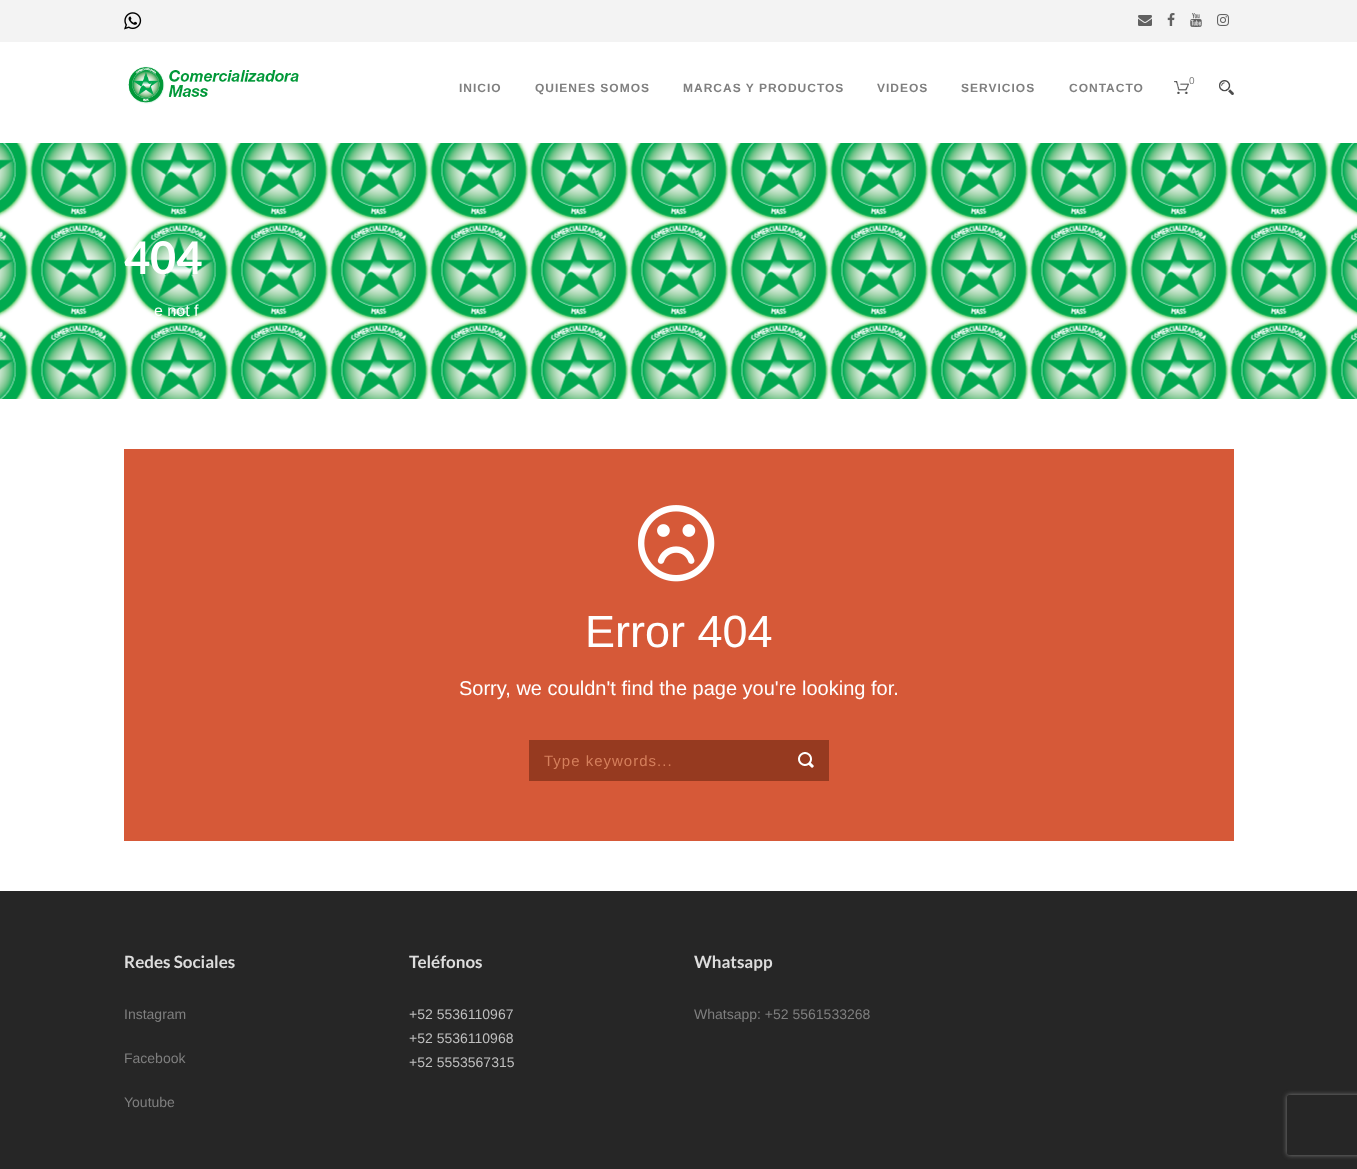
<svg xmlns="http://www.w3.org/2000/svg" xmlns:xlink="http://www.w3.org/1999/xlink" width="1357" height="1169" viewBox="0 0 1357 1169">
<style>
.cls-1{font:bold 12px Liberation Sans;letter-spacing:1px;fill:#7f7f7f}
.cls-2{font:10px Liberation Sans;fill:#7f7f7f}
.cls-3{font:bold 45px Lato;fill:#ffffff}
.cls-4{font:16px Liberation Sans;fill:#ffffff}
.cls-5{font:45px Liberation Sans;fill:#ffffff}
.cls-6{font:20px Liberation Sans;fill:#ffffff}
.cls-7{font:15px Liberation Sans;letter-spacing:1px;fill:#d57f5c}
.cls-8{font:bold 17px Lato;fill:#dddddd}
.cls-9{font:14px Liberation Sans;fill:#7f7f7f}
.cls-10{font:14px Liberation Sans;fill:#bfbfbf}
</style>
<defs>
<clipPath id="clip1"><path d="M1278 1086H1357V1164H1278ZM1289 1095H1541C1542 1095 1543 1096 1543 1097V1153C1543 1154 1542 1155 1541 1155H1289C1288 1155 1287 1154 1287 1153V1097C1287 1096 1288 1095 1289 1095Z" clip-rule="evenodd"/></clipPath>
<clipPath id="clip2"><rect x="544" y="752" width="270" height="17"/></clipPath>
</defs>
<rect width="100%" height="100%" fill="#ffffff"/>
<rect fill="#f3f3f3" x="0" y="0" width="1357" height="42"/>
<image xlink:href="image0.png" x="124" y="12" width="18" height="18"/>
<image xlink:href="image1.png" x="1138" y="15" width="14" height="11"/>
<image xlink:href="image2.png" x="1167" y="13" width="8" height="13"/>
<image xlink:href="image3.png" x="1190" y="13" width="12" height="14"/>
<image xlink:href="image4.png" x="1217" y="14" width="12" height="12"/>
<image xlink:href="image5.png" x="128" y="66" width="171" height="38"/>
<image xlink:href="image6.png" x="1174" y="81" width="15" height="13"/>
<image xlink:href="image7.png" x="1219" y="80" width="15" height="15"/>
<image xlink:href="image8.png" x="0" y="143" width="1357" height="256"/>
<rect fill="#d65938" x="124" y="449" width="1110" height="392"/>
<image xlink:href="image9.png" x="638" y="505" width="77" height="77"/>
<rect fill="#963a20" x="529" y="740" width="300" height="41"/>
<image xlink:href="image10.png" x="798" y="752" width="16" height="16"/>
<rect fill="#262626" x="0" y="891" width="1357" height="278"/>
<g clip-path="url(#clip1)">
<rect fill="#808080" filter="blur(2.5px)" x="1287" y="1095" width="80" height="60" rx="2"/>
</g>
<text class="cls-1" x="459" y="92">INICIO</text>
<text class="cls-1" x="535" y="92">QUIENES SOMOS</text>
<text class="cls-1" x="683" y="92">MARCAS Y PRODUCTOS</text>
<text class="cls-1" x="877" y="92">VIDEOS</text>
<text class="cls-1" x="961" y="92">SERVICIOS</text>
<text class="cls-1" x="1069" y="92">CONTACTO</text>
<text class="cls-2" x="1189" y="84">0</text>
<text class="cls-3" x="124" y="274">404</text>
<text class="cls-4" x="154" y="316">e not f</text>
<text class="cls-5" x="585" y="647">Error 404</text>
<text class="cls-6" x="459" y="695">Sorry, we couldn't find the page you're looking for.</text>
<g clip-path="url(#clip2)">
<text class="cls-7" x="544" y="766">Type keywords...</text>
</g>
<text class="cls-8" x="124" y="968">Redes Sociales</text>
<text class="cls-9" x="124" y="1019">Instagram</text>
<text class="cls-9" x="124" y="1063">Facebook</text>
<text class="cls-9" x="124" y="1107">Youtube</text>
<text class="cls-8" x="409" y="968">Teléfonos</text>
<text class="cls-10"><tspan x="409" y="1019">+52 5536110967</tspan><tspan x="409" y="1043">+52 5536110968</tspan><tspan x="409" y="1067">+52 5553567315</tspan></text>
<text class="cls-8" x="694" y="968">Whatsapp</text>
<text class="cls-9" x="694" y="1019">Whatsapp: +52 5561533268</text>
</svg>
